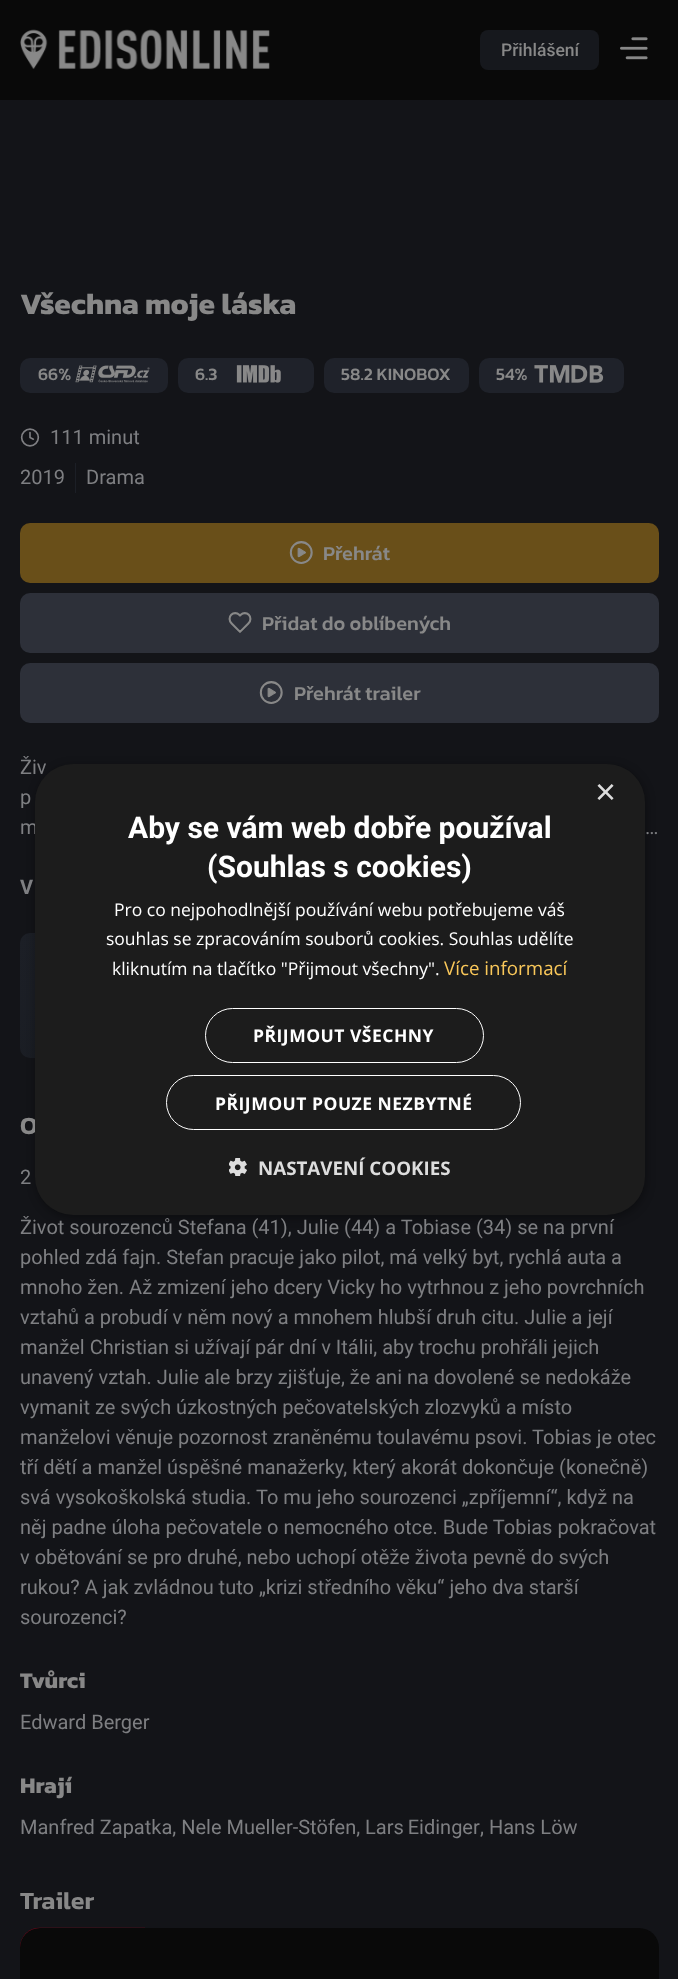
<svg xmlns="http://www.w3.org/2000/svg" xmlns:xlink="http://www.w3.org/1999/xlink" width="678" height="1979" viewBox="0 0 678 1979">
<style>
.cls-1{font:500 17.5px Roboto;fill:#888888}
.cls-2{font:bold 30px Kanit;fill:#888888}
.cls-3{font:500 17.5px Kanit;fill:#888888}
.cls-4{font:20px Roboto;fill:#7e7f82}
.cls-5{font:500 20px Kanit;fill:#888888}
.cls-6{font:bold 20px Roboto;fill:#7e7f82}
.cls-7{font:600 25px Kanit;fill:#888888}
.cls-8{font:bold 22.5px Kanit;fill:#888888}
.cls-9{font:36px Liberation Sans;fill:#dddddd}
.cls-10{font:bold 30px Roboto;fill:#ffffff}
.cls-11{font:17.5px Open Sans;fill:#ffffff}
.cls-12{font:18.75px Open Sans;fill:#fac85a}
.cls-13{font:bold 17.5px Open Sans;letter-spacing:0.5px;fill:#ffffff}
.cls-14{font:bold 18.75px Open Sans;fill:#dddddd}
</style>
<defs>
<linearGradient id="g1" gradientUnits="userSpaceOnUse" x1="9" y1="946" x2="131" y2="1044"><stop offset="0" stop-color="#1c1f26"/><stop offset="1" stop-color="#191c22"/></linearGradient>
</defs>
<rect width="100%" height="100%" fill="#131418"/>
<rect fill="#090909" x="0" y="0" width="678" height="100"/>
<image xlink:href="image0.png" x="20" y="29" width="250" height="41"/>
<rect fill="#16181d" x="480" y="30" width="119" height="40" rx="8"/>
<image xlink:href="image1.png" x="620" y="37" width="28" height="23"/>
<rect fill="#1f222a" x="20" y="358" width="148" height="35" rx="10"/>
<image xlink:href="image2.png" x="75" y="365" width="75" height="18"/>
<rect fill="#1f222a" x="178" y="358" width="136" height="35" rx="10"/>
<image xlink:href="image3.png" x="236" y="365" width="45" height="18"/>
<rect fill="#1f222a" x="324" y="358" width="145" height="35" rx="10"/>
<rect fill="#1f222a" x="479" y="358" width="145" height="35" rx="10"/>
<image xlink:href="image4.png" x="534" y="365" width="70" height="18"/>
<image xlink:href="image5.png" x="20" y="428" width="20" height="19"/>
<rect fill="#1c1f26" x="75" y="463" width="1" height="30"/>
<rect fill="#694f19" x="20" y="523" width="639" height="60" rx="10"/>
<image xlink:href="image6.png" x="289" y="541" width="24" height="23"/>
<rect fill="#2d3039" x="20" y="593" width="639" height="60" rx="10"/>
<image xlink:href="image7.png" x="228" y="612" width="24" height="21"/>
<rect fill="#2d3039" x="20" y="663" width="639" height="60" rx="10"/>
<image xlink:href="image8.png" x="259" y="681" width="24" height="23"/>
<rect fill="url(#g1)" x="20" y="933" width="100" height="125" rx="10"/>
<image xlink:href="image9.png" x="20" y="1927" width="125" height="21"/>
<rect fill="#090909" x="20" y="1928" width="639" height="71" rx="20"/>
<rect fill="#000000" fill-opacity="0.35" filter="blur(5px)" x="36" y="766" width="610" height="452" rx="38"/>
<text class="cls-1" x="501" y="56">Přihlášení</text>
<text class="cls-2" x="20" y="314">Všechna moje láska</text>
<text class="cls-3" x="38" y="380">66%</text>
<text class="cls-3" x="195" y="380">6.3</text>
<text class="cls-3" x="341" y="380">58.2 KINOBOX</text>
<text class="cls-3" x="496" y="380">54%</text>
<text class="cls-4" x="50" y="444">111 minut</text>
<text class="cls-4" x="20" y="484">2019</text>
<text class="cls-4" x="86" y="484">Drama</text>
<text class="cls-5" x="323" y="560">Přehrát</text>
<text class="cls-5" x="262" y="630">Přidat do oblíbených</text>
<text class="cls-5" x="294" y="700">Přehrát trailer</text>
<text class="cls-4"><tspan x="20" y="774">Živ</tspan><tspan x="20" y="804">p</tspan><tspan x="20" y="834">m</tspan></text>
<text class="cls-4" x="645" y="834">…</text>
<text class="cls-6" x="20" y="894">V</text>
<text class="cls-7" x="20" y="1134">O</text>
<text class="cls-4" x="20" y="1184">2</text>
<text class="cls-4"><tspan x="20" y="1234">Život sourozenců Stefana (41), Julie (44) a Tobiase (34) se na první</tspan><tspan x="20" y="1264">pohled zdá fajn. Stefan pracuje jako pilot, má velký byt, rychlá auta a</tspan><tspan x="20" y="1294">mnoho žen. Až zmizení jeho dcery Vicky ho vytrhnou z jeho povrchních</tspan><tspan x="20" y="1324">vztahů a probudí v něm nový a mnohem hlubší druh citu. Julie a její</tspan><tspan x="20" y="1354">manžel Christian si užívají pár dní v Itálii, aby trochu prohřáli jejich</tspan><tspan x="20" y="1384">unavený vztah. Julie ale brzy zjišťuje, že ani na dovolené se nedokáže</tspan><tspan x="20" y="1414">vymanit ze svých úzkostných pečovatelských zlozvyků a místo</tspan><tspan x="20" y="1444">manželovi věnuje pozornost zraněnému toulavému psovi. Tobias je otec</tspan><tspan x="20" y="1474">tří dětí a manžel úspěšné manažerky, který akorát dokončuje (konečně)</tspan><tspan x="20" y="1504">svá vysokoškolská studia. To mu jeho sourozenci „zpříjemní“, když na</tspan><tspan x="20" y="1534">něj padne úloha pečovatele o nemocného otce. Bude Tobias pokračovat</tspan><tspan x="20" y="1564">v obětování se pro druhé, nebo uchopí otěže života pevně do svých</tspan><tspan x="20" y="1594">rukou? A jak zvládnou tuto „krizi středního věku“ jeho dva starší</tspan><tspan x="20" y="1624">sourozenci?</tspan></text>
<text class="cls-8" x="20" y="1688">Tvůrci</text>
<text class="cls-4" x="20" y="1729">Edward Berger</text>
<text class="cls-8" x="20" y="1793">Hrají</text>
<text class="cls-4" x="20" y="1834">Manfred Zapatka, Nele Mueller-Stöfen,</text>
<text class="cls-4" x="365" y="1834" word-spacing="-1">Lars Eidinger</text>
<text class="cls-4" x="480" y="1834">, Hans Löw</text>
<text class="cls-7" x="20" y="1909">Trailer</text>
<rect fill="#1c1c1c" x="35" y="764" width="610" height="451" rx="38"/>
<text class="cls-9" x="595" y="804">×</text>
<text class="cls-10" x="128" y="838">Aby se vám web dobře používal</text>
<text class="cls-10" x="207" y="877">(Souhlas s cookies)</text>
<text class="cls-11" x="114" y="916">Pro co nejpohodlnější používání webu potřebujeme váš</text>
<text class="cls-11" x="106" y="945">souhlas se zpracováním souborů cookies. Souhlas udělíte</text>
<text class="cls-11" x="112" y="975">kliknutím na tlačítko "Přijmout všechny".</text>
<text class="cls-12" x="444" y="975">Více informací</text>
<rect fill="none" stroke="#ffffff" x="205.5" y="1008.5" width="278" height="54" rx="27"/>
<text class="cls-13" x="253" y="1042">PŘIJMOUT VŠECHNY</text>
<rect fill="none" stroke="#ffffff" x="166.5" y="1075.5" width="354" height="54" rx="27"/>
<text class="cls-13" x="215" y="1110">PŘIJMOUT POUZE NEZBYTNÉ</text>
<image xlink:href="image10.png" x="229" y="1158" width="18" height="18"/>
<text class="cls-14" x="258" y="1175">NASTAVENÍ COOKIES</text>
</svg>
